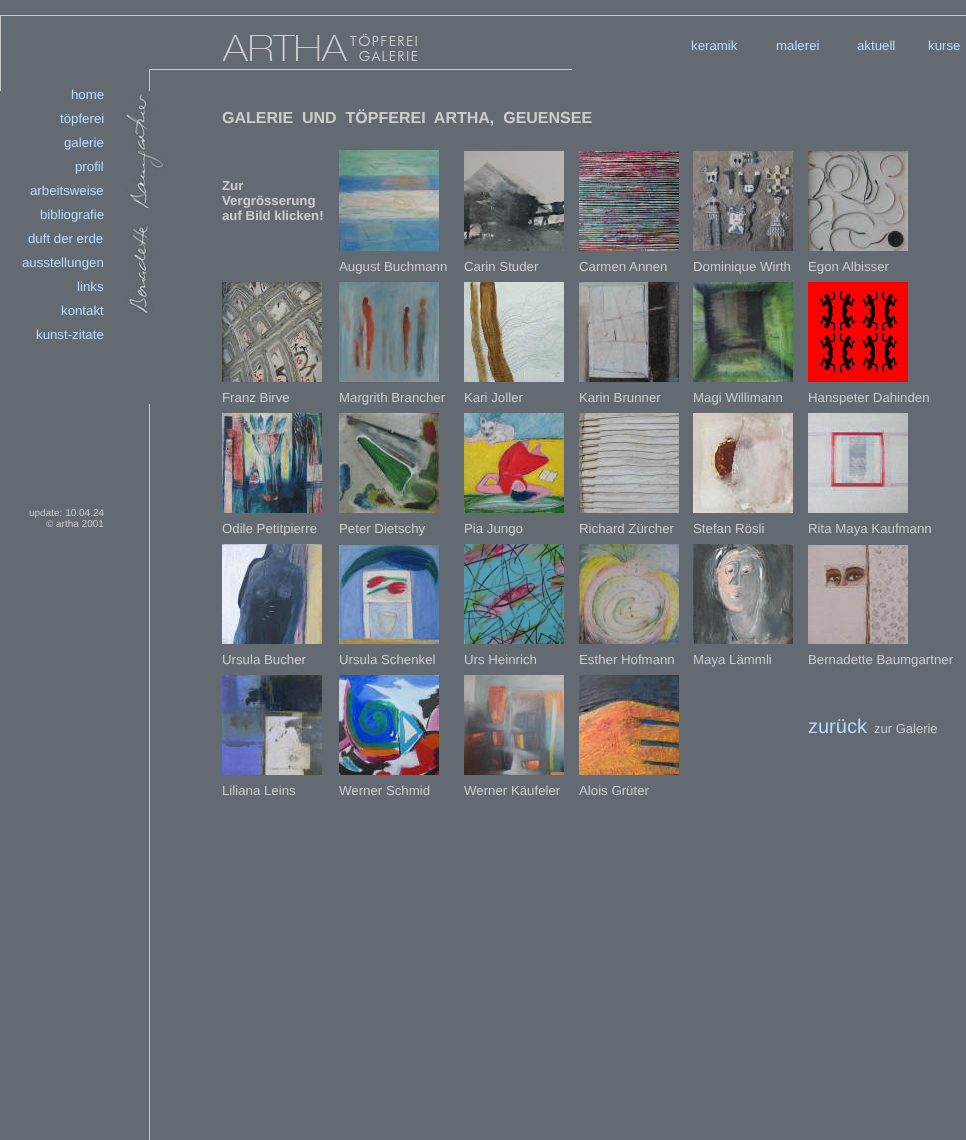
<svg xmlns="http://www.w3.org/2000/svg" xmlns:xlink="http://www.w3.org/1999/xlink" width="966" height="1140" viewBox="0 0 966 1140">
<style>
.cls-1{font:13.25px Liberation Sans;fill:#b7dbff}
.cls-2{font:10px Liberation Sans;fill:#cccccc}
.cls-3{font:10px Liberation Serif;fill:#cccccc}
.cls-4{font:bold 16px Liberation Sans;fill:#cccccc}
.cls-5{font:bold 13.25px Liberation Sans;fill:#cccccc}
.cls-6{font:13.25px Liberation Sans;fill:#cccccc}
.cls-7{font:20px Liberation Sans;fill:#b7dbff}
.cls-8{font:13px Liberation Sans;fill:#cccccc}
</style>
<rect width="100%" height="100%" fill="#636a72"/>
<rect fill="#cccccc" x="0" y="15" width="966" height="1"/>
<rect fill="#cccccc" x="0" y="15" width="1" height="76"/>
<rect fill="#cccccc" x="149" y="69" width="423" height="1"/>
<image xlink:href="image0.png" x="222" y="34" width="196" height="27"/>
<rect fill="#cccccc" x="149" y="70" width="1" height="21"/>
<image xlink:href="image1.png" x="339" y="150" width="100" height="101"/>
<image xlink:href="image2.png" x="464" y="151" width="100" height="100"/>
<image xlink:href="image3.png" x="579" y="151" width="100" height="100"/>
<image xlink:href="image4.png" x="693" y="151" width="100" height="100"/>
<image xlink:href="image5.png" x="808" y="151" width="100" height="100"/>
<image xlink:href="image6.png" x="222" y="282" width="100" height="100"/>
<image xlink:href="image7.png" x="339" y="282" width="100" height="100"/>
<image xlink:href="image8.png" x="464" y="282" width="100" height="100"/>
<image xlink:href="image9.png" x="579" y="282" width="100" height="100"/>
<image xlink:href="image10.png" x="693" y="282" width="100" height="100"/>
<image xlink:href="image11.png" x="808" y="282" width="100" height="100"/>
<image xlink:href="image12.png" x="222" y="413" width="100" height="100"/>
<image xlink:href="image13.png" x="339" y="413" width="100" height="100"/>
<image xlink:href="image14.png" x="464" y="413" width="100" height="100"/>
<image xlink:href="image15.png" x="579" y="413" width="100" height="100"/>
<image xlink:href="image16.png" x="693" y="413" width="100" height="100"/>
<image xlink:href="image17.png" x="808" y="413" width="100" height="100"/>
<image xlink:href="image18.png" x="222" y="544" width="100" height="100"/>
<image xlink:href="image19.png" x="339" y="545" width="100" height="99"/>
<image xlink:href="image20.png" x="464" y="544" width="100" height="100"/>
<image xlink:href="image21.png" x="579" y="544" width="100" height="100"/>
<image xlink:href="image22.png" x="693" y="544" width="100" height="100"/>
<image xlink:href="image23.png" x="808" y="545" width="100" height="99"/>
<image xlink:href="image24.png" x="222" y="675" width="100" height="100"/>
<image xlink:href="image25.png" x="339" y="675" width="100" height="100"/>
<image xlink:href="image26.png" x="464" y="675" width="100" height="100"/>
<image xlink:href="image27.png" x="579" y="675" width="100" height="100"/>
<image xlink:href="image28.png" x="123" y="92" width="41" height="223"/>
<rect fill="#cccccc" x="149" y="404" width="1" height="736"/>
<text class="cls-1" x="691" y="50">keramik</text>
<text class="cls-1" x="776" y="50">malerei</text>
<text class="cls-1" x="857" y="50">aktuell</text>
<text class="cls-1" x="928" y="50">kurse</text>
<text class="cls-1" x="71" y="99">home</text>
<text class="cls-1" x="60" y="123">töpferei</text>
<text class="cls-1" x="64" y="147">galerie</text>
<text class="cls-1" x="75" y="171">profil</text>
<text class="cls-1" x="30" y="195">arbeitsweise</text>
<text class="cls-1" x="40" y="219">bibliografie</text>
<text class="cls-1" x="28" y="243">duft der erde</text>
<text class="cls-1" x="22" y="267">ausstellungen</text>
<text class="cls-1" x="77" y="291">links</text>
<text class="cls-1" x="61" y="315">kontakt</text>
<text class="cls-1" x="36" y="339">kunst-zitate</text>
<text class="cls-2" x="29" y="516">update: 10.04.24</text>
<text class="cls-3" x="46" y="527">©</text>
<text class="cls-2" x="56" y="527">artha 2001</text>
<text class="cls-4" xml:space="preserve" x="222" y="123">GALERIE  UND  TÖPFEREI  ARTHA,  GEUENSEE</text>
<text class="cls-5"><tspan x="222" y="190">Zur</tspan><tspan x="222" y="205">Vergrösserung</tspan><tspan x="222" y="220">auf Bild klicken!</tspan></text>
<text class="cls-6" x="339" y="271">August Buchmann</text>
<text class="cls-6" x="464" y="271">Carin Studer</text>
<text class="cls-6" x="579" y="271">Carmen Annen</text>
<text class="cls-6" x="693" y="271">Dominique Wirth</text>
<text class="cls-6" x="808" y="271">Egon Albisser</text>
<text class="cls-6" x="222" y="402">Franz Birve</text>
<text class="cls-6" x="339" y="402">Margrith Brancher</text>
<text class="cls-6" x="464" y="402">Kari Joller</text>
<text class="cls-6" x="579" y="402">Karin Brunner</text>
<text class="cls-6" x="693" y="402">Magi Willimann</text>
<text class="cls-6" x="808" y="402">Hanspeter Dahinden</text>
<text class="cls-6" x="222" y="533">Odile Petitpierre</text>
<text class="cls-6" x="339" y="533">Peter Dietschy</text>
<text class="cls-6" x="464" y="533">Pia Jungo</text>
<text class="cls-6" x="579" y="533">Richard Zürcher</text>
<text class="cls-6" x="693" y="533">Stefan Rösli</text>
<text class="cls-6" x="808" y="533">Rita Maya Kaufmann</text>
<text class="cls-6" x="222" y="664">Ursula Bucher</text>
<text class="cls-6" x="339" y="664">Ursula Schenkel</text>
<text class="cls-6" x="464" y="664">Urs Heinrich</text>
<text class="cls-6" x="579" y="664">Esther Hofmann</text>
<text class="cls-6" x="693" y="664">Maya Lämmli</text>
<text class="cls-6" x="808" y="664">Bernadette Baumgartner</text>
<text class="cls-7" x="808" y="733">zurück</text>
<text class="cls-8" x="874" y="733">zur Galerie</text>
<text class="cls-6" x="222" y="795">Liliana Leins</text>
<text class="cls-6" x="339" y="795">Werner Schmid</text>
<text class="cls-6" x="464" y="795">Werner Käufeler</text>
<text class="cls-6" x="579" y="795">Alois Grüter</text>
</svg>
